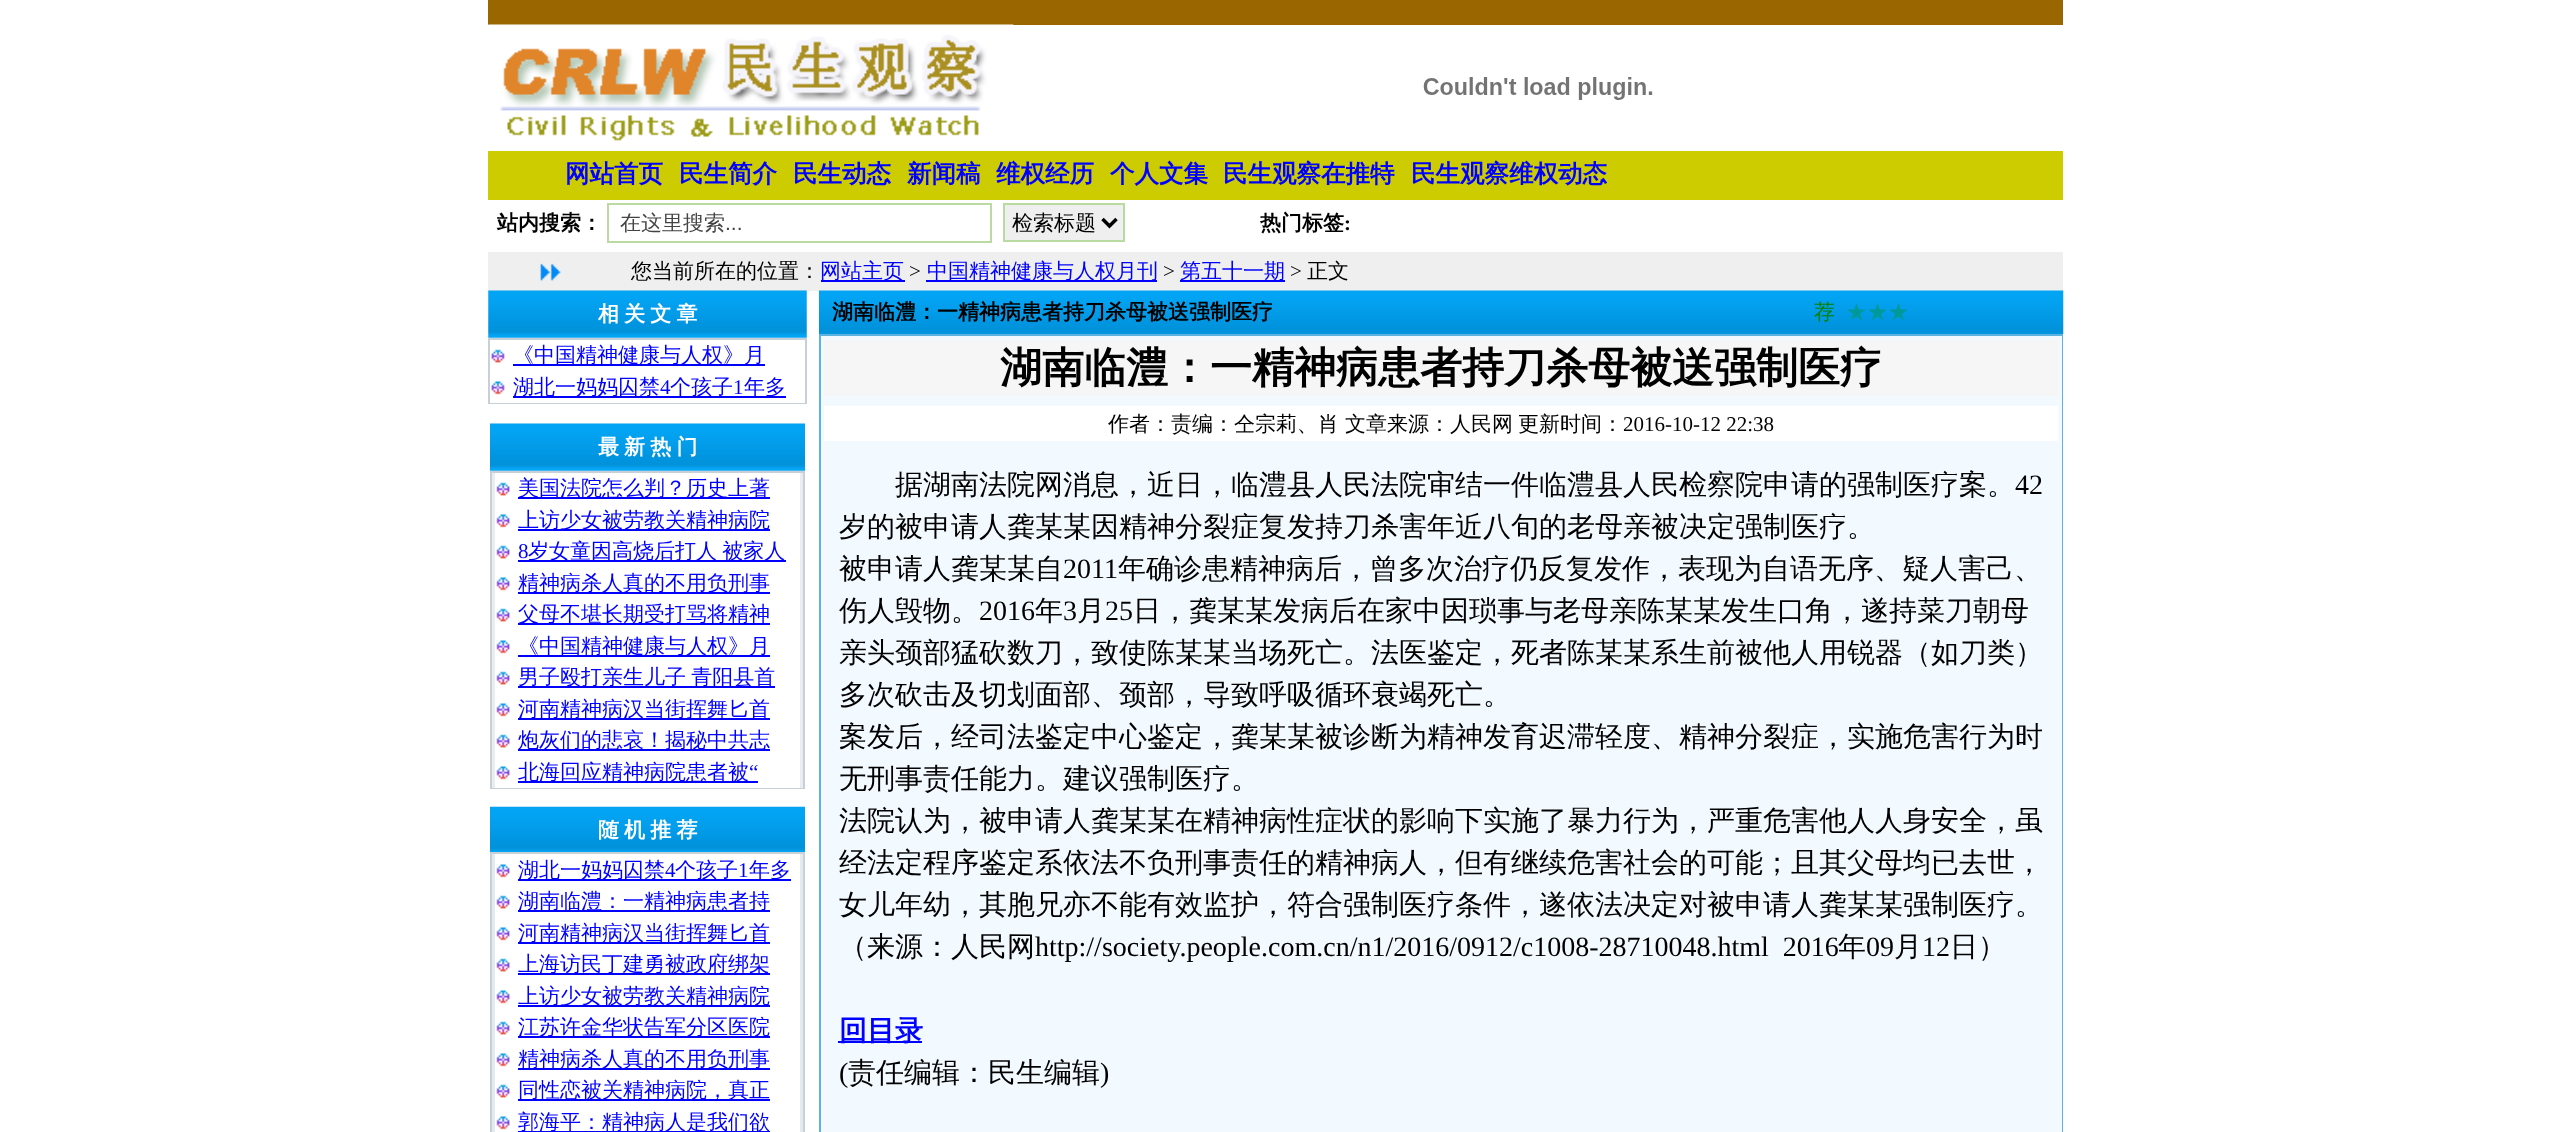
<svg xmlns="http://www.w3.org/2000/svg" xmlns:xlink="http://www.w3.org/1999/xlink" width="2551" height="1132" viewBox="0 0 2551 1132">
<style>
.cls-1{font:bold 24.5px WenQuanYi Zen Hei;fill:#0000ff}
.cls-2{font:bold 21px WenQuanYi Zen Hei;fill:#000000}
.cls-3{font:500 21px WenQuanYi Zen Hei;fill:#444444}
.cls-4{font:21px Liberation Sans;fill:#444444}
.cls-5{font:500 21px WenQuanYi Zen Hei;fill:#000000}
.cls-6{font:bold 21px Liberation Serif;fill:#000000}
.cls-7{font:500 21px WenQuanYi Zen Hei;fill:#0000ff}
.cls-8{font:21px Liberation Serif;fill:#000000}
.cls-9{font:bold 21px WenQuanYi Zen Hei;fill:#ffffff}
.cls-10{font:21px Liberation Serif;fill:#0000ff}
.cls-11{font:500 21px WenQuanYi Zen Hei;fill:#008000}
.cls-12{font:500 21px WenQuanYi Zen Hei;fill:#009999}
.cls-13{font:bold 42px WenQuanYi Zen Hei;fill:#000000}
.cls-14{font:500 28px WenQuanYi Zen Hei;fill:#000000}
.cls-15{font:28px Liberation Serif;fill:#000000}
.cls-16{font:bold 28px WenQuanYi Zen Hei;fill:#0000ff}
</style>
<rect width="100%" height="100%" fill="#ffffff"/>
<rect fill="#996600" x="488" y="0" width="1575" height="25"/>
<image xlink:href="image0.png" x="488" y="24" width="526" height="117"/>
<image xlink:href="image1.png" x="1423" y="77" width="230" height="23"/>
<rect fill="#cccc00" x="488" y="151" width="1575" height="49"/>
<rect fill="none" stroke="#badaa1" stroke-width="2" x="608" y="204" width="383" height="38"/>
<rect fill="#efefef" stroke="#badaa1" stroke-width="2" x="1004" y="204" width="120" height="37"/>
<path fill="none" stroke="#000000" stroke-width="3.5" d="M1102.5 219L1109.5 226L1116.5 219"/>
<rect fill="#efefef" x="488" y="252" width="1575" height="39"/>
<image xlink:href="image2.png" x="540" y="263" width="21" height="18"/>
<rect fill="#0000ff" x="821" y="280" width="84" height="2"/>
<rect fill="#0000ff" x="926" y="280" width="231" height="2"/>
<rect fill="#0000ff" x="1180" y="280" width="105" height="2"/>
<image xlink:href="image3.png" x="488" y="290" width="319" height="48"/>
<rect fill="#c7d0d6" x="488" y="338" width="319" height="66"/>
<rect fill="#ffffff" x="490" y="340" width="315" height="31"/>
<image xlink:href="image4.png" x="491" y="349" width="14" height="14"/>
<rect fill="#0000ff" x="513" y="364" width="252" height="2"/>
<rect fill="#ffffff" x="490" y="371" width="315" height="32"/>
<image xlink:href="image5.png" x="491" y="381" width="14" height="14"/>
<rect fill="#0000ff" x="513" y="396" width="273" height="2"/>
<image xlink:href="image6.png" x="490" y="423" width="315" height="48"/>
<rect fill="#c7d0d6" x="490" y="471" width="315" height="318"/>
<rect fill="#e9edef" x="492" y="473" width="311" height="315"/>
<rect fill="#ffffff" x="495" y="473" width="305" height="31"/>
<image xlink:href="image7.png" x="496" y="482" width="14" height="14"/>
<rect fill="#0000ff" x="518" y="497" width="252" height="2"/>
<rect fill="#ffffff" x="495" y="504" width="305" height="32"/>
<image xlink:href="image8.png" x="496" y="514" width="14" height="14"/>
<rect fill="#0000ff" x="518" y="529" width="252" height="2"/>
<rect fill="#ffffff" x="495" y="536" width="305" height="31"/>
<image xlink:href="image7.png" x="496" y="545" width="14" height="14"/>
<rect fill="#0000ff" x="518" y="560" width="268" height="2"/>
<rect fill="#ffffff" x="495" y="567" width="305" height="32"/>
<image xlink:href="image8.png" x="496" y="577" width="14" height="14"/>
<rect fill="#0000ff" x="518" y="592" width="252" height="2"/>
<rect fill="#ffffff" x="495" y="599" width="305" height="31"/>
<image xlink:href="image7.png" x="496" y="608" width="14" height="14"/>
<rect fill="#0000ff" x="518" y="623" width="252" height="2"/>
<rect fill="#ffffff" x="495" y="630" width="305" height="32"/>
<image xlink:href="image8.png" x="496" y="640" width="14" height="14"/>
<rect fill="#0000ff" x="518" y="655" width="252" height="2"/>
<rect fill="#ffffff" x="495" y="662" width="305" height="31"/>
<image xlink:href="image7.png" x="496" y="671" width="14" height="14"/>
<rect fill="#0000ff" x="518" y="686" width="257" height="2"/>
<rect fill="#ffffff" x="495" y="693" width="305" height="32"/>
<image xlink:href="image8.png" x="496" y="703" width="14" height="14"/>
<rect fill="#0000ff" x="518" y="718" width="252" height="2"/>
<rect fill="#ffffff" x="495" y="725" width="305" height="31"/>
<image xlink:href="image7.png" x="496" y="734" width="14" height="14"/>
<rect fill="#0000ff" x="518" y="749" width="252" height="2"/>
<rect fill="#ffffff" x="495" y="756" width="305" height="32"/>
<image xlink:href="image8.png" x="496" y="766" width="14" height="14"/>
<rect fill="#0000ff" x="518" y="781" width="240" height="2"/>
<image xlink:href="image9.png" x="490" y="806" width="315" height="46"/>
<rect fill="#c7d0d6" x="490" y="852" width="315" height="280"/>
<rect fill="#e3ebef" x="492" y="854" width="311" height="278"/>
<rect fill="#ffffff" x="495" y="854" width="305" height="32"/>
<image xlink:href="image8.png" x="496" y="864" width="14" height="14"/>
<rect fill="#0000ff" x="518" y="879" width="273" height="2"/>
<rect fill="#ffffff" x="495" y="886" width="305" height="31"/>
<image xlink:href="image7.png" x="496" y="895" width="14" height="14"/>
<rect fill="#0000ff" x="518" y="910" width="252" height="2"/>
<rect fill="#ffffff" x="495" y="917" width="305" height="32"/>
<image xlink:href="image8.png" x="496" y="927" width="14" height="14"/>
<rect fill="#0000ff" x="518" y="942" width="252" height="2"/>
<rect fill="#ffffff" x="495" y="949" width="305" height="31"/>
<image xlink:href="image7.png" x="496" y="958" width="14" height="14"/>
<rect fill="#0000ff" x="518" y="973" width="252" height="2"/>
<rect fill="#ffffff" x="495" y="980" width="305" height="32"/>
<image xlink:href="image8.png" x="496" y="990" width="14" height="14"/>
<rect fill="#0000ff" x="518" y="1005" width="252" height="2"/>
<rect fill="#ffffff" x="495" y="1012" width="305" height="31"/>
<image xlink:href="image7.png" x="496" y="1021" width="14" height="14"/>
<rect fill="#0000ff" x="518" y="1036" width="252" height="2"/>
<rect fill="#ffffff" x="495" y="1043" width="305" height="32"/>
<image xlink:href="image8.png" x="496" y="1053" width="14" height="14"/>
<rect fill="#0000ff" x="518" y="1068" width="252" height="2"/>
<rect fill="#ffffff" x="495" y="1075" width="305" height="31"/>
<image xlink:href="image7.png" x="496" y="1084" width="14" height="14"/>
<rect fill="#0000ff" x="518" y="1099" width="252" height="2"/>
<rect fill="#ffffff" x="495" y="1106" width="305" height="26"/>
<image xlink:href="image8.png" x="496" y="1116" width="14" height="14"/>
<rect fill="#0000ff" x="518" y="1131" width="252" height="1"/>
<image xlink:href="image10.png" x="819" y="290" width="1245" height="45"/>
<rect fill="#5db3e0" x="819" y="334" width="1244" height="798"/>
<rect fill="#f2f9ff" x="821" y="336" width="1241" height="796"/>
<rect fill="#f6f6f6" x="824" y="340" width="1234" height="56"/>
<rect fill="#ffffff" x="824" y="406" width="1234" height="35"/>
<rect fill="#0000ff" x="838" y="1041" width="84" height="2"/>
<text class="cls-1" x="565" y="182">网站首页</text>
<text class="cls-1" x="679" y="182">民生简介</text>
<text class="cls-1" x="793" y="182">民生动态</text>
<text class="cls-1" x="907" y="182">新闻稿</text>
<text class="cls-1" x="996" y="182">维权经历</text>
<text class="cls-1" x="1110" y="182">个人文集</text>
<text class="cls-1" x="1223" y="182">民生观察在推特</text>
<text class="cls-1" x="1411" y="182">民生观察维权动态</text>
<text class="cls-2" x="497" y="230">站内搜索：</text>
<text class="cls-3" x="620" y="230">在这里搜索</text>
<text class="cls-4" x="725" y="230">...</text>
<text class="cls-5" x="1012" y="230">检索标题</text>
<text class="cls-2" x="1260" y="230">热门标签</text>
<text class="cls-6" x="1344" y="230">:</text>
<text class="cls-5" x="631" y="278">您当前所在的位置：</text>
<text class="cls-7" x="820" y="278">网站主页</text>
<text class="cls-8" x="909" y="278">&gt;</text>
<text class="cls-7" x="927" y="278">中国精神健康与人权月刊</text>
<text class="cls-8" x="1163" y="278">&gt;</text>
<text class="cls-7" x="1180" y="278">第五十一期</text>
<text class="cls-8" x="1290" y="278">&gt;</text>
<text class="cls-5" x="1307" y="278">正文</text>
<text class="cls-9" x="598" y="321">相</text>
<text class="cls-9" x="624" y="321" word-spacing="-1">关 文 章</text>
<text class="cls-7"><tspan x="513" y="362">《中国精神健康与人权》月</tspan><tspan x="513" y="394">湖北一妈妈囚禁</tspan></text>
<text class="cls-10" x="660" y="394">4</text>
<text class="cls-7" x="670" y="394">个孩子</text>
<text class="cls-10" x="733" y="394">1</text>
<text class="cls-7" x="744" y="394">年多</text>
<text class="cls-9" x="598" y="454">最</text>
<text class="cls-9" x="624" y="454" word-spacing="-1">新 热 门</text>
<text class="cls-7"><tspan x="518" y="495">美国法院怎么判？历史上著</tspan><tspan x="518" y="527">上访少女被劳教关精神病院</tspan></text>
<text class="cls-10" x="518" y="558">8</text>
<text class="cls-7" x="528" y="558" word-spacing="-1">岁女童因高烧后打人 被家人</text>
<text class="cls-7"><tspan x="518" y="590">精神病杀人真的不用负刑事</tspan><tspan x="518" y="621">父母不堪长期受打骂将精神</tspan><tspan x="518" y="653">《中国精神健康与人权》月</tspan><tspan x="518" y="684" word-spacing="-1">男子殴打亲生儿子 青阳县首</tspan><tspan x="518" y="716">河南精神病汉当街挥舞匕首</tspan><tspan x="518" y="747">炮灰们的悲哀！揭秘中共志</tspan><tspan x="518" y="779">北海回应精神病院患者被</tspan></text>
<text class="cls-10" x="749" y="779">“</text>
<text class="cls-9" x="598" y="837">随</text>
<text class="cls-9" x="624" y="837" word-spacing="-1">机 推 荐</text>
<text class="cls-7" x="518" y="877">湖北一妈妈囚禁</text>
<text class="cls-10" x="665" y="877">4</text>
<text class="cls-7" x="675" y="877">个孩子</text>
<text class="cls-10" x="738" y="877">1</text>
<text class="cls-7" x="749" y="877">年多</text>
<text class="cls-7"><tspan x="518" y="908">湖南临澧：一精神病患者持</tspan><tspan x="518" y="940">河南精神病汉当街挥舞匕首</tspan><tspan x="518" y="971">上海访民丁建勇被政府绑架</tspan><tspan x="518" y="1003">上访少女被劳教关精神病院</tspan><tspan x="518" y="1034">江苏许金华状告军分区医院</tspan><tspan x="518" y="1066">精神病杀人真的不用负刑事</tspan><tspan x="518" y="1097">同性恋被关精神病院，真正</tspan><tspan x="518" y="1129">郭海平：精神病人是我们欲</tspan></text>
<text class="cls-2" x="832" y="319">湖南临澧：一精神病患者持刀杀母被送强制医疗</text>
<text class="cls-11" x="1814" y="319">荐</text>
<text class="cls-12" x="1846" y="319">★★★</text>
<text class="cls-13" x="1000" y="382">湖南临澧：一精神病患者持刀杀母被送强制医疗</text>
<text class="cls-5" x="1108" y="431">作者：责编：仝宗莉、肖</text>
<text class="cls-5" x="1345" y="431">文章来源：人民网</text>
<text class="cls-5" x="1518" y="431">更新时间：</text>
<text class="cls-8" x="1623" y="431">2016-10-12 22:38</text>
<text class="cls-14" x="895" y="494">据湖南法院网消息，近日，临澧县人民法院审结一件临澧县人民检察院申请的强制医疗案。</text>
<text class="cls-15" x="2015" y="494">42</text>
<text class="cls-14"><tspan x="839" y="536">岁的被申请人龚某某因精神分裂症复发持刀杀害年近八旬的老母亲被决定强制医疗。</tspan><tspan x="839" y="578">被申请人龚某某自</tspan></text>
<text class="cls-15" x="1063" y="578">2011</text>
<text class="cls-14" x="1118" y="578">年确诊患精神病后，曾多次治疗仍反复发作，表现为自语无序、疑人害己、</text>
<text class="cls-14" x="839" y="620">伤人毁物。</text>
<text class="cls-15" x="979" y="620">2016</text>
<text class="cls-14" x="1035" y="620">年</text>
<text class="cls-15" x="1063" y="620">3</text>
<text class="cls-14" x="1077" y="620">月</text>
<text class="cls-15" x="1105" y="620">25</text>
<text class="cls-14" x="1133" y="620">日，龚某某发病后在家中因琐事与老母亲陈某某发生口角，遂持菜刀朝母</text>
<text class="cls-14"><tspan x="839" y="662">亲头颈部猛砍数刀，致使陈某某当场死亡。法医鉴定，死者陈某某系生前被他人用锐器（如刀类）</tspan><tspan x="839" y="704">多次砍击及切划面部、颈部，导致呼吸循环衰竭死亡。</tspan><tspan x="839" y="746">案发后，经司法鉴定中心鉴定，龚某某被诊断为精神发育迟滞轻度、精神分裂症，实施危害行为时</tspan><tspan x="839" y="788">无刑事责任能力。建议强制医疗。</tspan><tspan x="839" y="830">法院认为，被申请人龚某某在精神病性症状的影响下实施了暴力行为，严重危害他人人身安全，虽</tspan><tspan x="839" y="872">经法定程序鉴定系依法不负刑事责任的精神病人，但有继续危害社会的可能；且其父母均已去世，</tspan><tspan x="839" y="914">女儿年幼，其胞兄亦不能有效监护，符合强制医疗条件，遂依法决定对被申请人龚某某强制医疗。</tspan><tspan x="839" y="956">（来源：人民网</tspan></text>
<text class="cls-15" xml:space="preserve" x="1035" y="956">http://society.people.com.cn/n1/2016/0912/c1008-28710048.html  2016</text>
<text class="cls-14" x="1838" y="956">年</text>
<text class="cls-15" x="1866" y="956">09</text>
<text class="cls-14" x="1894" y="956">月</text>
<text class="cls-15" x="1922" y="956">12</text>
<text class="cls-14" x="1950" y="956">日）</text>
<text class="cls-16" x="839" y="1040">回目录</text>
<text class="cls-15" x="839" y="1082">(</text>
<text class="cls-14" x="848" y="1082">责任编辑：民生编辑</text>
<text class="cls-15" x="1100" y="1082">)</text>
</svg>
